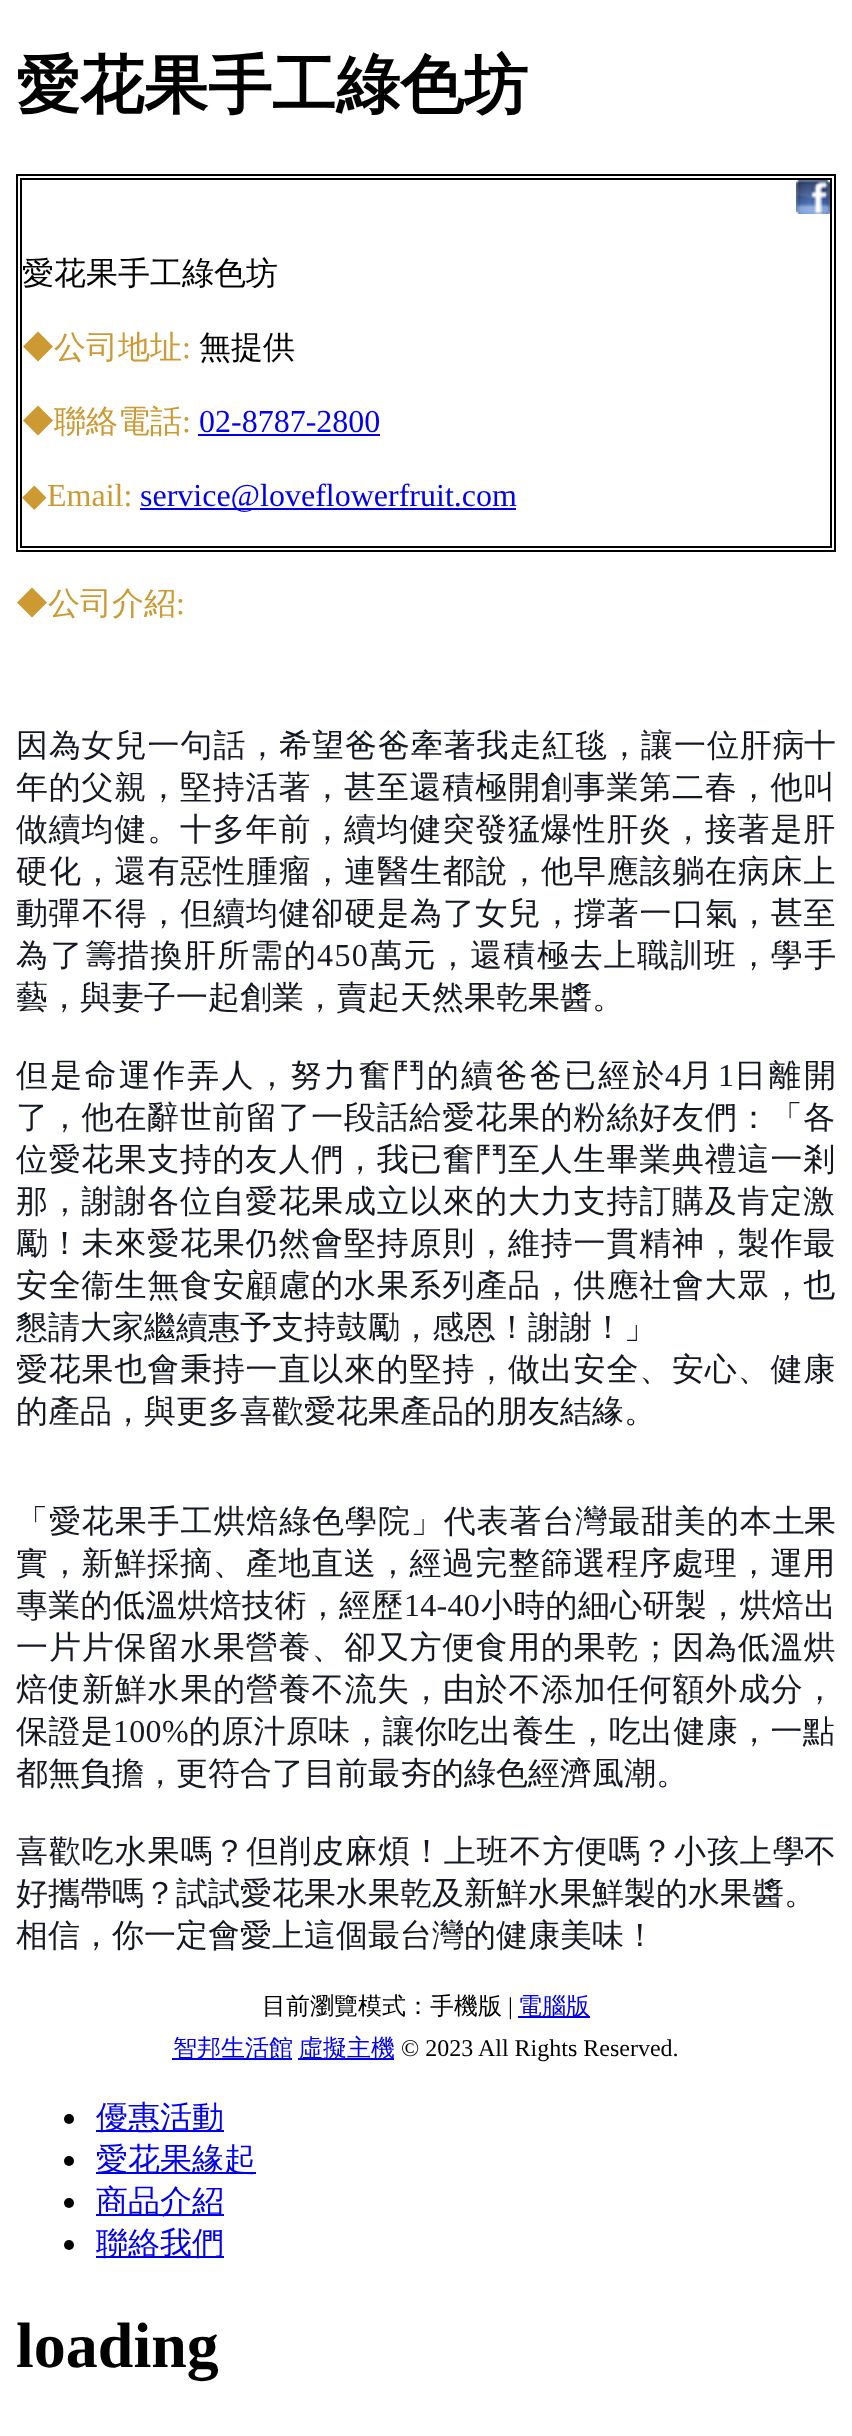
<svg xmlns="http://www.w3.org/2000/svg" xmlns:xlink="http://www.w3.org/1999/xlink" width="852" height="2436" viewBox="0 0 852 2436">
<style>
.cls-1{font:bold 64px WenQuanYi Zen Hei;fill:#000000}
.cls-2{font:500 32px WenQuanYi Zen Hei;fill:#000000}
.cls-3{font:500 32px WenQuanYi Zen Hei;fill:#cc9933}
.cls-4{font:32px Liberation Serif;fill:#cc9933}
.cls-5{font:32px Liberation Serif;fill:#0000ee}
.cls-6{font:32px DejaVu Sans;fill:#cc9933}
.cls-7{font:500 32px WenQuanYi Zen Hei;letter-spacing:0.9px;fill:#141823}
.cls-8{font:500 32px WenQuanYi Zen Hei;fill:#141823}
.cls-9{font:500 32px WenQuanYi Zen Hei;letter-spacing:0.8px;fill:#141823}
.cls-10{font:500 32px WenQuanYi Zen Hei;letter-spacing:2.5px;fill:#141823}
.cls-11{font:500 32px WenQuanYi Zen Hei;letter-spacing:1.4px;fill:#141823}
.cls-12{font:32px Liberation Serif;letter-spacing:1.4px;fill:#141823}
.cls-13{font:500 32px WenQuanYi Zen Hei;letter-spacing:2.25px;fill:#141823}
.cls-14{font:32px Liberation Serif;fill:#141823}
.cls-15{font:500 32px WenQuanYi Zen Hei;letter-spacing:3px;fill:#141823}
.cls-16{font:500 32px WenQuanYi Zen Hei;letter-spacing:0.3px;fill:#141823}
.cls-17{font:32px Liberation Serif;letter-spacing:0.3px;fill:#141823}
.cls-18{font:500 32px WenQuanYi Zen Hei;letter-spacing:0.5px;fill:#141823}
.cls-19{font:500 24px WenQuanYi Zen Hei;fill:#000000}
.cls-20{font:24px Liberation Serif;fill:#000000}
.cls-21{font:500 24px WenQuanYi Zen Hei;fill:#0000ee}
.cls-22{font:500 32px WenQuanYi Zen Hei;fill:#0000ee}
.cls-23{font:bold 64px Liberation Serif;fill:#000000}
</style>
<rect width="100%" height="100%" fill="#ffffff"/>
<rect fill="none" stroke="#000000" stroke-width="2" x="17" y="175" width="818" height="376"/>
<rect fill="none" stroke="#000000" stroke-width="2" x="21" y="179" width="810" height="368"/>
<image xlink:href="image0.png" x="796" y="180" width="34" height="34"/>
<rect fill="#0000ee" x="198" y="434" width="182" height="2"/>
<rect fill="#0000ee" x="140" y="508" width="376" height="2"/>
<rect fill="#0000ee" x="518" y="2016" width="72" height="2"/>
<rect fill="#0000ee" x="172" y="2058" width="120" height="2"/>
<rect fill="#0000ee" x="298" y="2058" width="96" height="2"/>
<circle fill="#000000" cx="69" cy="2119" r="5"/>
<rect fill="#0000ee" x="96" y="2130" width="128" height="2"/>
<circle fill="#000000" cx="69" cy="2161" r="5"/>
<rect fill="#0000ee" x="96" y="2172" width="160" height="2"/>
<circle fill="#000000" cx="69" cy="2203" r="5"/>
<rect fill="#0000ee" x="96" y="2214" width="128" height="2"/>
<circle fill="#000000" cx="69" cy="2245" r="5"/>
<rect fill="#0000ee" x="96" y="2256" width="128" height="2"/>
<text class="cls-1" x="16" y="107">愛花果手工綠色坊</text>
<text class="cls-2" x="22" y="284">愛花果手工綠色坊</text>
<text class="cls-3" x="22" y="358">◆公司地址</text>
<text class="cls-4" x="182" y="358">:</text>
<text class="cls-2" x="199" y="358">無提供</text>
<text class="cls-3" x="22" y="432">◆聯絡電話</text>
<text class="cls-4" x="182" y="432">:</text>
<text class="cls-5" x="199" y="432">02-8787-2800</text>
<text class="cls-6" x="22" y="506">◆</text>
<text class="cls-4" x="47" y="506">Email:</text>
<text class="cls-5" x="140" y="506">service@loveflowerfruit.com</text>
<text class="cls-3" x="16" y="614">◆公司介紹</text>
<text class="cls-4" x="176" y="614">:</text>
<text class="cls-7" x="16" y="756">因為女兒一句話，希望爸爸牽著我走紅毯，讓一位肝病</text>
<text class="cls-8" x="804" y="756">十</text>
<text class="cls-9"><tspan x="16" y="798">年的父親，堅持活著，甚至還積極開創事業第二春，他叫</tspan><tspan x="16" y="840">做續均健。十多年前，續均健突發猛爆性肝炎，接著是肝</tspan></text>
<text class="cls-8" x="16" y="882">硬</text>
<text class="cls-9" x="49" y="882">化，還有惡性腫瘤，連醫生都說，他早應該躺在病床上</text>
<text class="cls-8" x="16" y="924">動彈</text>
<text class="cls-9" x="82" y="924">不得，但續均健卻硬是為了女兒，撐著一口氣，甚至</text>
<text class="cls-10" x="16" y="966">為了籌</text>
<text class="cls-11" x="117" y="966">措換肝所需的</text>
<text class="cls-12" x="317" y="966">450</text>
<text class="cls-11" x="370" y="966">萬元，還積極去上職訓班，學手</text>
<text class="cls-8" x="16" y="1008">藝，與妻子一起創業，賣起天然果乾果醬。</text>
<text class="cls-13" x="16" y="1086">但是命運作弄人，努力奮鬥的續爸爸已經於</text>
<text class="cls-14" x="665" y="1086">4</text>
<text class="cls-8" x="681" y="1086">月</text>
<text class="cls-14" x="718" y="1086">1</text>
<text class="cls-15" x="734" y="1086">日離開</text>
<text class="cls-9"><tspan x="16" y="1128">了，他在辭世前留了一段話給愛花果的粉絲好友們：「各</tspan><tspan x="16" y="1170">位愛花果支持的友人們，我已奮鬥至人生畢業典禮這一剎</tspan><tspan x="16" y="1212">那，謝謝各位自愛花果成立以來的大力支持訂購及肯定激</tspan><tspan x="16" y="1254">勵！未來愛花果仍然會堅持原則，維持一貫精神，製作最</tspan><tspan x="16" y="1296">安全衞生無食安顧慮的水果系列產品，供應社會大眾，也</tspan></text>
<text class="cls-8" x="16" y="1338">懇請大家繼續惠予支持鼓勵，感恩！謝謝！」</text>
<text class="cls-9" x="16" y="1380">愛花果也會秉持一直以來的堅持，做出安全、安心、健康</text>
<text class="cls-8" x="16" y="1422">的產品，與更多喜歡愛花果產品的朋友結緣。</text>
<text class="cls-7" x="16" y="1532">「愛花果手工烘焙綠色學院」代表著台灣最甜美的本土</text>
<text class="cls-8" x="804" y="1532">果</text>
<text class="cls-9" x="16" y="1574">實，新鮮採摘、產地直送，經過完整篩選程序處理，運用</text>
<text class="cls-16" x="16" y="1616">專業的低溫烘焙技術，經歷</text>
<text class="cls-17" x="404" y="1616">14-40</text>
<text class="cls-16" x="481" y="1616">小時的細心研製，烘焙出</text>
<text class="cls-8" x="16" y="1658">一</text>
<text class="cls-9" x="49" y="1658">片片保留水果營養、卻又方便食用的果乾；因為低溫烘</text>
<text class="cls-8" x="16" y="1700">焙使</text>
<text class="cls-9" x="82" y="1700">新鮮水果的營養不流失，由於不添加任何額外成分，</text>
<text class="cls-18" x="16" y="1742">保證是</text>
<text class="cls-17" x="113" y="1742">100%</text>
<text class="cls-16" x="189" y="1742">的原汁原味，讓你吃出養生，吃出健康，一點</text>
<text class="cls-8" x="16" y="1784">都無負擔，更符合了目前最夯的綠色經濟風潮。</text>
<text class="cls-7" x="16" y="1862">喜歡吃水果嗎？但削皮麻煩！上班不方便嗎？小孩上學</text>
<text class="cls-8" x="804" y="1862">不</text>
<text class="cls-8"><tspan x="16" y="1904">好攜帶嗎？試試愛花果水果乾及新鮮水果鮮製的水果醬。</tspan><tspan x="16" y="1946">相信，你一定會愛上這個最台灣的健康美味！</tspan></text>
<text class="cls-19" x="262" y="2014">目前瀏覽模式：手機版</text>
<text class="cls-20" x="508" y="2014">|</text>
<text class="cls-21" x="518" y="2014">電腦版</text>
<text class="cls-21" x="173" y="2056">智邦生活館</text>
<text class="cls-21" x="299" y="2056">虛擬主機</text>
<text class="cls-20" x="401" y="2056">© 2023 All Rights Reserved.</text>
<text class="cls-22"><tspan x="96" y="2128">優惠活動</tspan><tspan x="96" y="2170">愛花果緣起</tspan><tspan x="96" y="2212">商品介紹</tspan><tspan x="96" y="2254">聯絡我們</tspan></text>
<text class="cls-23" x="16" y="2367">loading</text>
</svg>
